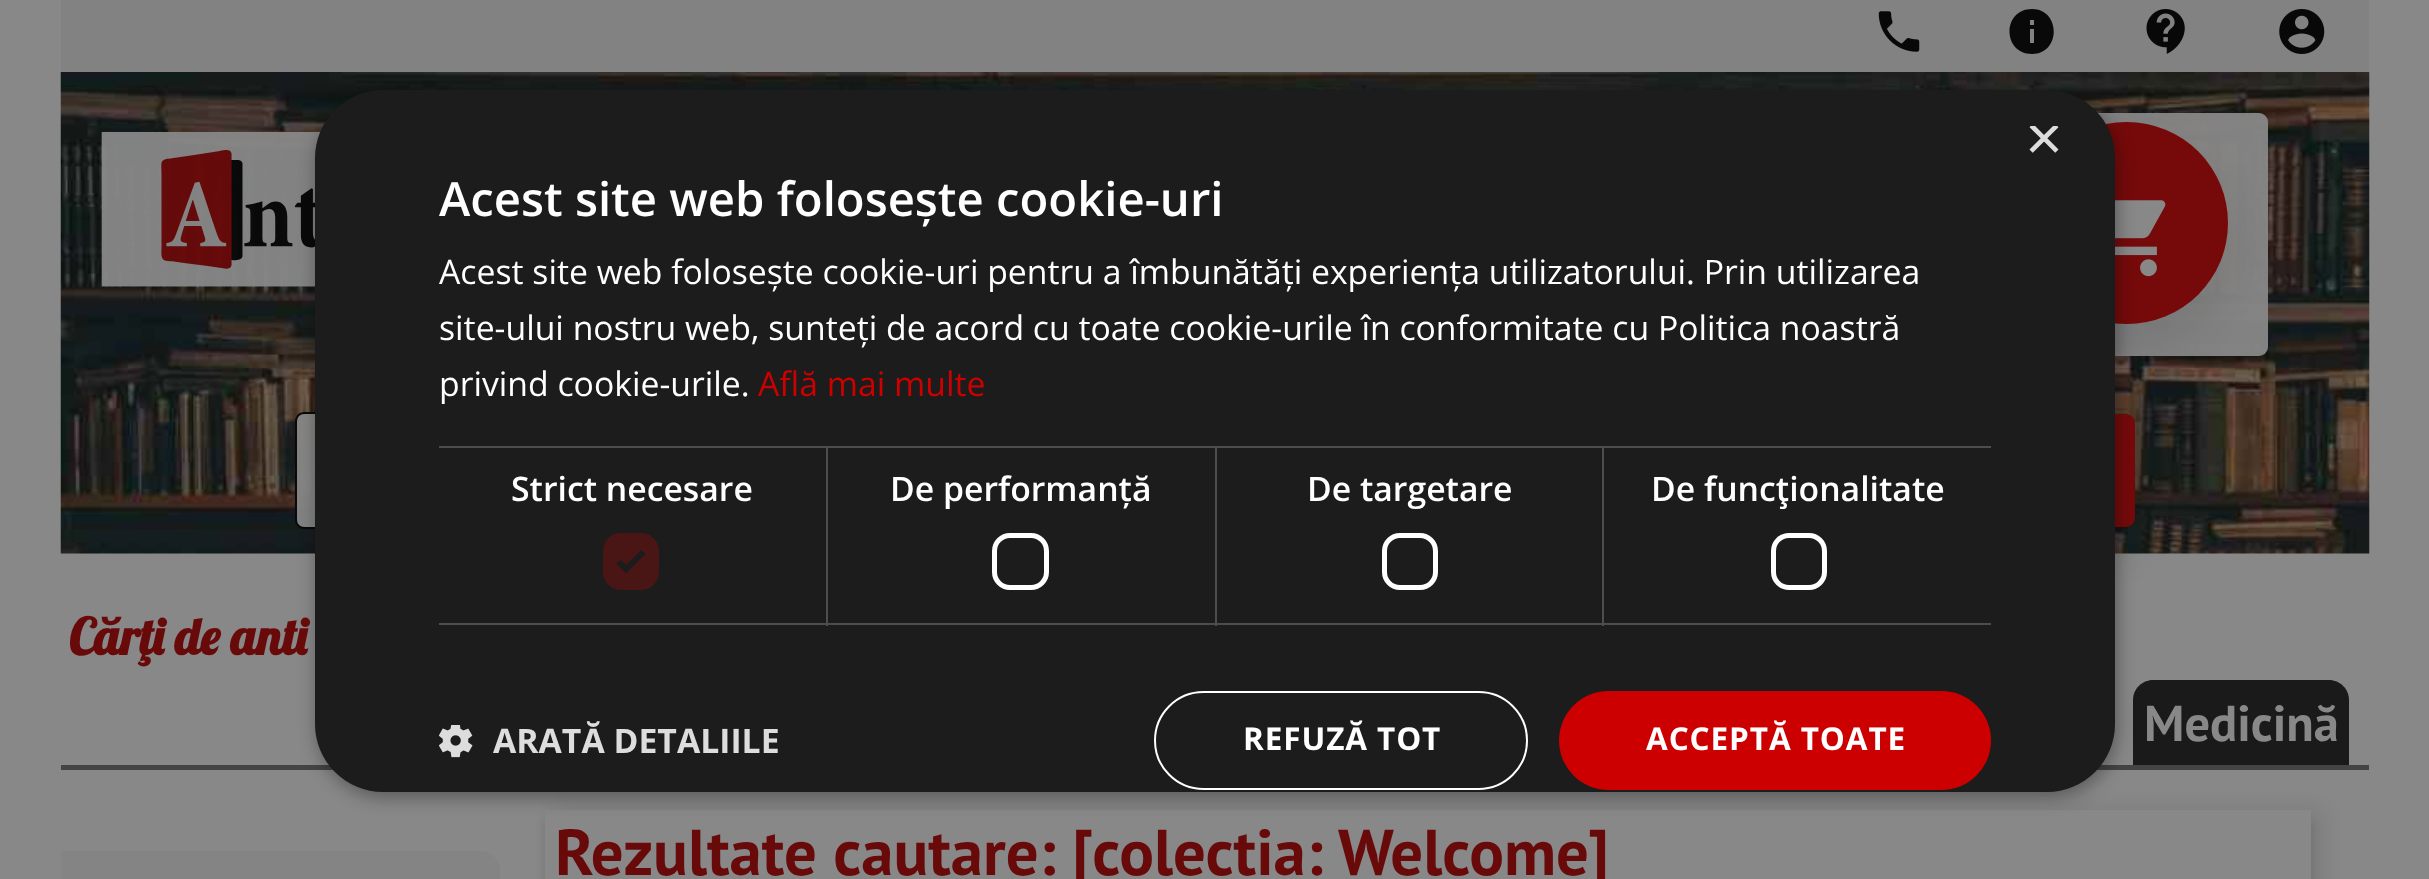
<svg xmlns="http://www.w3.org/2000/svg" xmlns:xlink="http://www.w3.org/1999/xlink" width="2429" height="879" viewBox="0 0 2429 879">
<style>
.cls-1{font:65px Liberation Sans;fill:#dddddd}
.cls-2{font:600 47.25px Open Sans;fill:#ffffff}
.cls-3{font:33.75px Open Sans;fill:#ffffff}
.cls-4{font:33.75px Open Sans;fill:#cc0000}
.cls-5{font:600 33.75px Open Sans;fill:#ffffff}
.cls-6{font:bold 33.75px Open Sans;fill:#dddddd}
.cls-7{font:bold 31.5px Open Sans;letter-spacing:0.9px;fill:#ffffff}
.cls-8{font:bold 50.5px Lobster;fill:#690a0a}
.cls-9{font:bold 50.5px PT Sans;fill:#888888}
.cls-10{font:bold 64.75px PT Sans;fill:#690a0a}
</style>
<defs>
<clipPath id="clip1"><rect x="2025" y="126" width="34" height="34"/></clipPath>
</defs>
<rect width="100%" height="100%" fill="#888888"/>
<rect fill="#828282" x="61" y="0" width="2308" height="72"/>
<image xlink:href="image0.png" x="1878" y="11" width="42" height="41"/>
<path fill="#090909" d="M2032 9C2002 9 2002 54 2032 54C2061 54 2061 9 2032 9ZM2034 43H2030V29H2034ZM2034 25H2030V20H2034Z"/>
<image xlink:href="image1.png" x="2146" y="9" width="39" height="45"/>
<image xlink:href="image2.png" x="2279" y="9" width="46" height="45"/>
<image xlink:href="image3.png" x="60" y="72" width="2310" height="482"/>
<image xlink:href="image4.png" x="101" y="131" width="220" height="156"/>
<rect fill="#888888" fill-opacity="0.95" x="1114" y="113" width="1154" height="243" rx="9"/>
<rect fill="#090909" fill-opacity="0.1" filter="blur(20px)" x="2025" y="142" width="203" height="202" rx="101"/>
<rect fill="#760a0a" x="2025" y="122" width="203" height="202" rx="101"/>
<image xlink:href="image5.png" x="2115" y="200" width="51" height="77"/>
<rect fill="#888888" fill-opacity="0.95" stroke="#090909" stroke-width="2" x="296" y="413" width="1613" height="115" rx="8"/>
<rect fill="#090909" fill-opacity="0.1" filter="blur(20px)" x="1955" y="434" width="180" height="113" rx="9"/>
<rect fill="#760a0a" x="1955" y="414" width="180" height="113" rx="9"/>
<rect fill="#444444" x="61" y="765" width="2308" height="5"/>
<path fill="#1a1a1a" d="M2153 680H2329C2340 680 2349 689 2349 700V765H2133V700C2133 689 2142 680 2153 680Z"/>
<rect fill="#090909" fill-opacity="0.1" filter="blur(10px)" x="556" y="810" width="1766" height="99"/>
<rect fill="#090909" fill-opacity="0.1" filter="blur(5px)" x="545" y="821" width="1766" height="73"/>
<rect fill="#888888" x="545" y="810" width="1766" height="69"/>
<rect fill="#000000" fill-opacity="0.35" filter="blur(9px)" x="317" y="95" width="1800" height="702" rx="68"/>
<rect fill="#1c1c1c" x="315" y="90" width="1800" height="702" rx="68"/>
<rect fill="#4d4d4d" x="439" y="446" width="1552" height="2"/>
<rect fill="#4d4d4d" x="826" y="446" width="2" height="180"/>
<rect fill="#4d4d4d" x="439" y="623" width="389" height="2"/>
<rect fill="#4a1515" x="603" y="533" width="56" height="57" rx="18"/>
<path fill="none" stroke="#1c1c1c" stroke-width="5.9" d="M618.5 561.5L626 569L643.5 552"/>
<rect fill="#4d4d4d" x="1215" y="446" width="2" height="180"/>
<rect fill="#4d4d4d" x="828" y="623" width="389" height="2"/>
<rect fill="none" stroke="#ffffff" stroke-width="5" x="994.5" y="535.5" width="52" height="52" rx="15.5"/>
<rect fill="#4d4d4d" x="1602" y="446" width="2" height="180"/>
<rect fill="#4d4d4d" x="1217" y="623" width="774" height="2"/>
<rect fill="none" stroke="#ffffff" stroke-width="5" x="1384.5" y="535.5" width="51" height="52" rx="15.5"/>
<rect fill="none" stroke="#ffffff" stroke-width="5" x="1773.5" y="535.5" width="51" height="52" rx="15.5"/>
<image xlink:href="image6.png" x="439" y="725" width="34" height="33"/>
<rect fill="none" stroke="#ffffff" stroke-width="2" x="1155" y="692" width="372" height="97" rx="48.5"/>
<rect fill="#cc0000" x="1559" y="691" width="432" height="99" rx="49.5"/>
<path fill="#848484" d="M61 851H480C491 851 500 860 500 871V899H61Z"/>
<g clip-path="url(#clip1)">
<text class="cls-1" x="2025" y="160">×</text>
</g>
<text class="cls-2" x="439" y="216">Acest site web folosește cookie-uri</text>
<text class="cls-3"><tspan x="439" y="284">Acest site web folosește cookie-uri pentru a îmbunătăți experiența utilizatorului. Prin utilizarea</tspan><tspan x="439" y="340">site-ului nostru web, sunteți de acord cu toate cookie-urile în conformitate cu Politica noastră</tspan><tspan x="439" y="396">privind cookie-urile.</tspan></text>
<text class="cls-4" x="758" y="396">Află mai multe</text>
<text class="cls-5" x="511" y="501">Strict necesare</text>
<text class="cls-5" x="890" y="501">De performanță</text>
<text class="cls-5" x="1307" y="501">De targetare</text>
<text class="cls-5" x="1651" y="501">De funcţionalitate</text>
<text class="cls-6" x="493" y="753">ARATĂ DETALIILE</text>
<text class="cls-7" x="1243" y="750">REFUZĂ TOT</text>
<text class="cls-7" x="1646" y="750">ACCEPTĂ TOATE</text>
<text class="cls-8" x="69" y="655">Cărţi de anti</text>
<text class="cls-9" x="2144" y="741">Medicină</text>
<text class="cls-10" x="555" y="875">Rezultate cautare: [colectia: Welcome]</text>
</svg>
